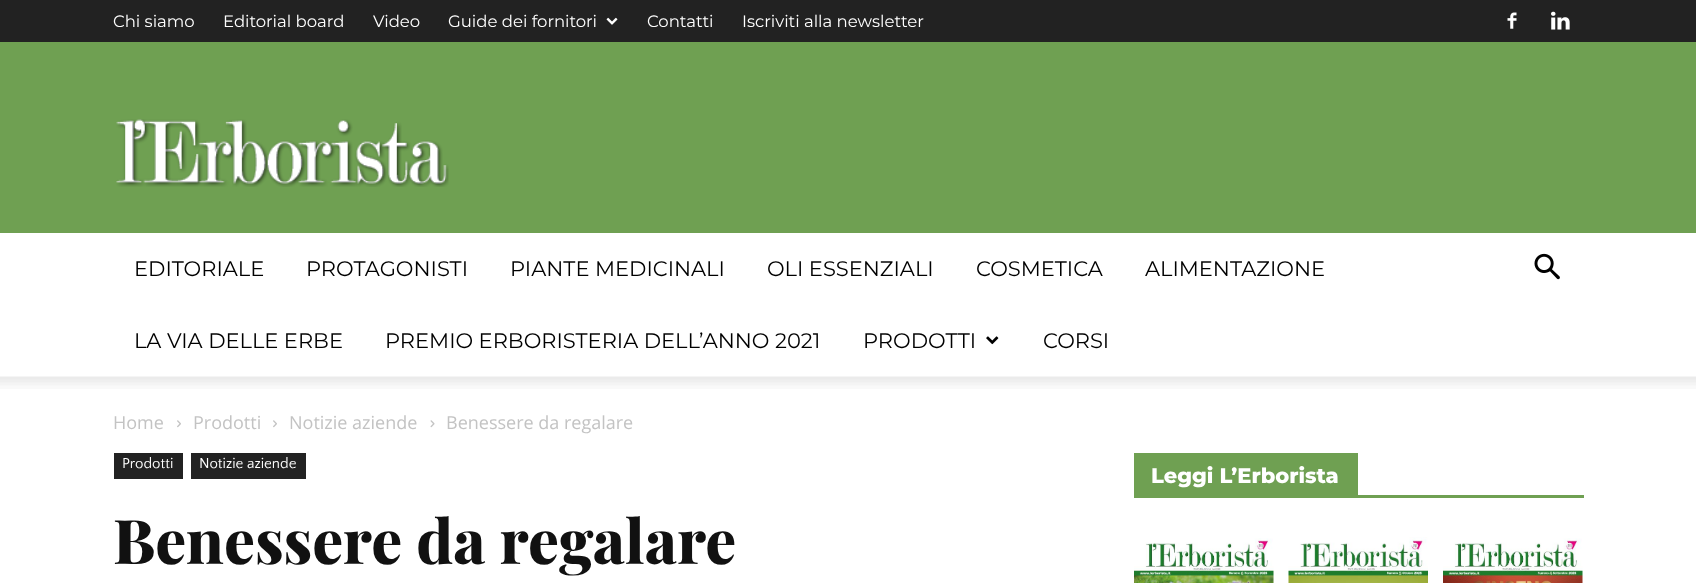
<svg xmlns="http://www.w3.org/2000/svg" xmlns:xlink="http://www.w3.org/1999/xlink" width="1696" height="583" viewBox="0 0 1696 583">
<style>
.cls-1{font:16.5px Montserrat;fill:#ffffff}
.cls-2{font:21px Montserrat;fill:#000000}
.cls-3{font:18px Open Sans;fill:#c3c3c3}
.cls-4{font:15px Quattrocento Sans;fill:#ffffff}
.cls-5{font:800 61.5px Playfair Display;fill:#111111}
.cls-6{font:800 21px Montserrat;fill:#ffffff}
</style>
<rect width="100%" height="100%" fill="#ffffff"/>
<rect fill="#222222" x="0" y="0" width="1696" height="42"/>
<image xlink:href="image0.png" x="606" y="17" width="12" height="8"/>
<image xlink:href="image1.png" x="1507" y="12" width="10" height="17"/>
<image xlink:href="image2.png" x="1551" y="11" width="19" height="19"/>
<rect fill="#6fa052" x="0" y="42" width="1696" height="191"/>
<image xlink:href="image3.png" x="116" y="119" width="333" height="68"/>
<image xlink:href="image4.png" x="986" y="336" width="13" height="9"/>
<image xlink:href="image5.png" x="1534" y="253" width="26" height="27"/>
<image xlink:href="image6.png" x="0" y="376" width="1696" height="13"/>
<image xlink:href="image7.png" x="177" y="420" width="4" height="8"/>
<image xlink:href="image7.png" x="273" y="420" width="4" height="8"/>
<image xlink:href="image8.png" x="430" y="420" width="5" height="8"/>
<rect fill="#222222" x="114" y="453" width="69" height="26"/>
<rect fill="#222222" x="191" y="453" width="115" height="26"/>
<rect fill="#6fa052" x="1134" y="495" width="450" height="3"/>
<rect fill="#6fa052" x="1134" y="453" width="224" height="42"/>
<image xlink:href="image9.png" x="1134" y="538" width="140" height="45"/>
<image xlink:href="image10.png" x="1288" y="537" width="140" height="46"/>
<image xlink:href="image11.png" x="1443" y="538" width="140" height="45"/>
<text class="cls-1" x="113" y="27">Chi siamo</text>
<text class="cls-1" x="223" y="27">Editorial board</text>
<text class="cls-1" x="373" y="27">Video</text>
<text class="cls-1" x="448" y="27">Guide dei fornitori</text>
<text class="cls-1" x="647" y="27">Contatti</text>
<text class="cls-1" x="742" y="27">Iscriviti alla newsletter</text>
<text class="cls-2" x="134" y="276">EDITORIALE</text>
<text class="cls-2" x="306" y="276">PROTAGONISTI</text>
<text class="cls-2" x="510" y="276">PIANTE MEDICINALI</text>
<text class="cls-2" x="767" y="276">OLI ESSENZIALI</text>
<text class="cls-2" x="976" y="276">COSMETICA</text>
<text class="cls-2" x="1145" y="276">ALIMENTAZIONE</text>
<text class="cls-2" x="134" y="348">LA VIA DELLE ERBE</text>
<text class="cls-2" x="385" y="348">PREMIO ERBORISTERIA DELL’ANNO 2021</text>
<text class="cls-2" x="863" y="348">PRODOTTI</text>
<text class="cls-2" x="1043" y="348">CORSI</text>
<text class="cls-3" x="113" y="429">Home</text>
<text class="cls-3" x="193" y="429">Prodotti</text>
<text class="cls-3" x="289" y="429">Notizie aziende</text>
<text class="cls-3" x="446" y="429">Benessere da regalare</text>
<text class="cls-4" x="122" y="468">Prodotti</text>
<text class="cls-4" x="199" y="468">Notizie aziende</text>
<text class="cls-5" x="113" y="564">Benessere da regalare</text>
<text class="cls-6" x="1151" y="483">Leggi L’Erborista</text>
</svg>
